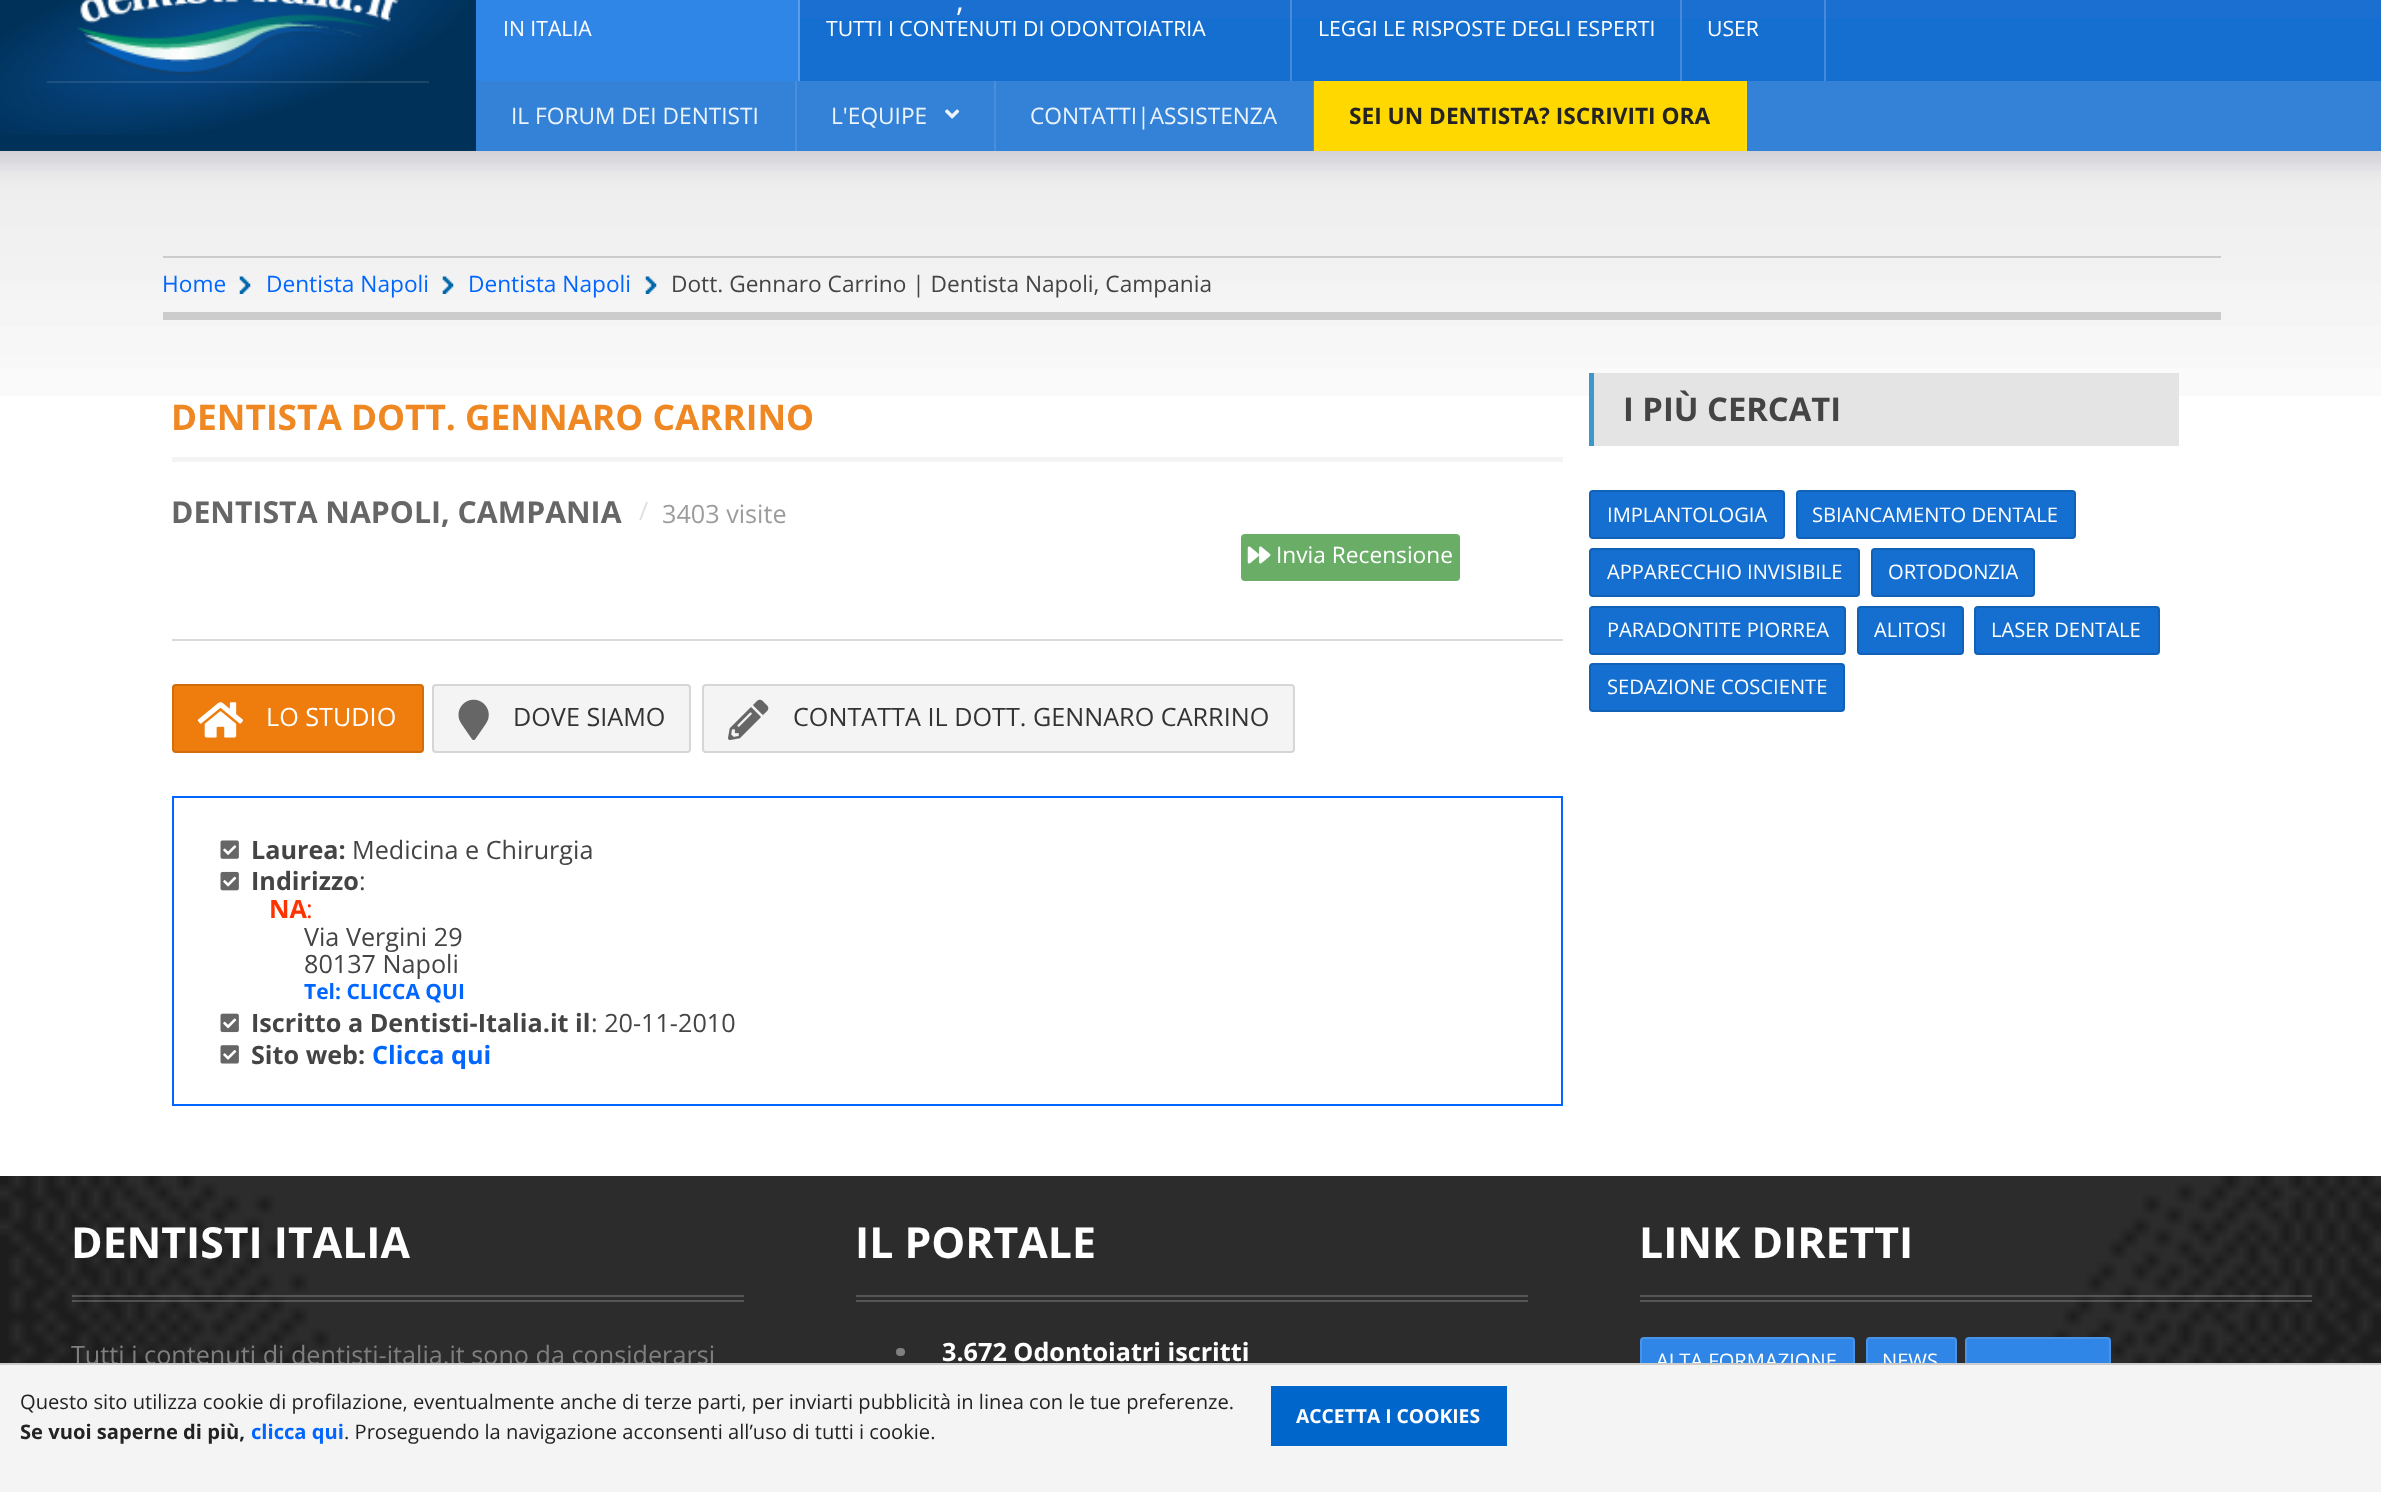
<svg xmlns="http://www.w3.org/2000/svg" xmlns:xlink="http://www.w3.org/1999/xlink" width="2381" height="1492" viewBox="0 0 2381 1492">
<style>
.cls-1{font:21.2px Open Sans;fill:#ffffff}
.cls-2{font:30.25px Open Sans;fill:#ffffff}
.cls-3{font:22.7px Open Sans;fill:#ebf3fb}
.cls-4{font:bold 22.7px Open Sans;fill:#232323}
.cls-5{font:22.7px Open Sans;fill:#0066ff}
.cls-6{font:22.7px Open Sans;fill:#444444}
.cls-7{font:bold 35.25px Open Sans;fill:#ef8722}
.cls-8{font:bold 30.25px Open Sans;fill:#666666}
.cls-9{font:25.2px Open Sans;fill:#e1e1e1}
.cls-10{font:25.2px Open Sans;fill:#9c9c9c}
.cls-11{font:22.7px Open Sans;fill:#ffffff}
.cls-12{font:25.2px Open Sans;fill:#ffffff}
.cls-13{font:25.2px Open Sans;fill:#333333}
.cls-14{font:bold 25.2px Open Sans;fill:#444444}
.cls-15{font:25.2px Open Sans;fill:#444444}
.cls-16{font:bold 25.2px Open Sans;fill:#ff3300}
.cls-17{font:25.2px Open Sans;fill:#ff3300}
.cls-18{font:bold 21px Open Sans;fill:#0066ff}
.cls-19{font:bold 25.2px Open Sans;fill:#0066ff}
.cls-20{font:bold 32.75px Open Sans;fill:#444444}
.cls-21{font:20.15px Open Sans;fill:#ffffff}
.cls-22{font:bold 42.75px Open Sans;fill:#ffffff}
.cls-23{font:25.2px Open Sans;fill:#7f7f7f}
.cls-24{font:bold 25.2px Open Sans;fill:#ffffff}
.cls-25{font:20.15px Open Sans;fill:#232323}
.cls-26{font:bold 20.15px Open Sans;fill:#232323}
.cls-27{font:bold 20.15px Open Sans;fill:#0066ff}
.cls-28{font:bold 19.25px Open Sans;fill:#ffffff}
</style>
<defs>
<clipPath id="clip1"><rect x="208" y="833" width="1318" height="236"/></clipPath>
</defs>
<rect width="100%" height="100%" fill="#ffffff"/>
<image xlink:href="image0.png" x="0" y="151" width="2381" height="245"/>
<rect fill="#003158" x="0" y="0" width="476" height="151"/>
<image xlink:href="image1.png" x="0" y="0" width="468" height="135"/>
<rect fill="#ffffff" fill-opacity="0.1" x="47" y="81" width="382" height="2"/>
<image xlink:href="image2.png" x="77" y="0" width="322" height="75"/>
<rect fill="#146fd1" x="800" y="18" width="1581" height="63"/>
<rect fill="#1b6fd1" x="800" y="0" width="1581" height="18"/>
<rect fill="#2f86e6" x="476" y="0" width="322" height="81"/>
<rect fill="#599eeb" x="798" y="0" width="2" height="81"/>
<rect fill="#ffffff" fill-opacity="0.2" x="1290" y="0" width="2" height="81"/>
<rect fill="#ffffff" fill-opacity="0.2" x="1680" y="0" width="2" height="81"/>
<rect fill="#ffffff" fill-opacity="0.2" x="1824" y="0" width="2" height="81"/>
<rect fill="#3382d7" x="476" y="81" width="1905" height="70"/>
<rect fill="#478fdb" x="795" y="81" width="2" height="70"/>
<rect fill="#478fdb" x="994" y="81" width="2" height="70"/>
<image xlink:href="image3.png" x="945" y="109" width="15" height="10"/>
<rect fill="#478fdb" x="1313" y="81" width="1" height="70"/>
<rect fill="#ffd800" x="1314" y="81" width="431" height="70"/>
<rect fill="#ffdc1a" x="1745" y="81" width="2" height="70"/>
<rect fill="#cccccc" x="163" y="256" width="2058" height="2"/>
<rect fill="#cccccc" x="163" y="312" width="2058" height="8"/>
<image xlink:href="image4.png" x="239" y="276" width="12" height="18"/>
<image xlink:href="image4.png" x="442" y="276" width="12" height="18"/>
<image xlink:href="image4.png" x="645" y="276" width="12" height="18"/>
<rect fill="#dadada" x="172" y="639" width="1391" height="2"/>
<rect fill="#f4f4f4" x="172" y="457" width="1391" height="5"/>
<rect fill="#69ad67" x="1241" y="534" width="219" height="47" rx="4"/>
<image xlink:href="image5.png" x="1247" y="546" width="24" height="18"/>
<rect fill="#ee7d0d" x="172" y="684" width="252" height="69" rx="4"/>
<rect fill="none" stroke="#000000" stroke-opacity="0.12" stroke-width="2" x="173" y="685" width="250" height="67" rx="3"/>
<image xlink:href="image6.png" x="197" y="702" width="46" height="36"/>
<rect fill="#f4f4f4" x="432" y="684" width="259" height="69" rx="4"/>
<rect fill="none" stroke="#000000" stroke-opacity="0.12" stroke-width="2" x="433" y="685" width="257" height="67" rx="3"/>
<image xlink:href="image7.png" x="458" y="699" width="31" height="41"/>
<rect fill="#f4f4f4" x="702" y="684" width="593" height="69" rx="4"/>
<rect fill="none" stroke="#000000" stroke-opacity="0.12" stroke-width="2" x="703" y="685" width="591" height="67" rx="3"/>
<image xlink:href="image8.png" x="728" y="699" width="41" height="41"/>
<rect fill="none" stroke="#0066ff" stroke-width="2" x="173" y="797" width="1389" height="308"/>
<image xlink:href="image9.png" x="220" y="840" width="19" height="19"/>
<image xlink:href="image10.png" x="220" y="871" width="19" height="20"/>
<image xlink:href="image11.png" x="220" y="1013" width="19" height="20"/>
<image xlink:href="image12.png" x="220" y="1045" width="19" height="19"/>
<rect fill="#e4e4e4" x="1594" y="373" width="585" height="73"/>
<rect fill="#3c98ca" x="1589" y="373" width="5" height="73"/>
<rect fill="#146fd1" x="1589" y="490" width="196" height="49" rx="4"/>
<rect fill="none" stroke="#000000" stroke-opacity="0.12" stroke-width="2" x="1590" y="491" width="194" height="47" rx="3"/>
<rect fill="#146fd1" x="1796" y="490" width="280" height="49" rx="4"/>
<rect fill="none" stroke="#000000" stroke-opacity="0.12" stroke-width="2" x="1797" y="491" width="278" height="47" rx="3"/>
<rect fill="#146fd1" x="1589" y="548" width="271" height="49" rx="4"/>
<rect fill="none" stroke="#000000" stroke-opacity="0.12" stroke-width="2" x="1590" y="549" width="269" height="47" rx="3"/>
<rect fill="#146fd1" x="1871" y="548" width="164" height="49" rx="4"/>
<rect fill="none" stroke="#000000" stroke-opacity="0.12" stroke-width="2" x="1872" y="549" width="162" height="47" rx="3"/>
<rect fill="#146fd1" x="1589" y="606" width="257" height="49" rx="4"/>
<rect fill="none" stroke="#000000" stroke-opacity="0.12" stroke-width="2" x="1590" y="607" width="255" height="47" rx="3"/>
<rect fill="#146fd1" x="1857" y="606" width="107" height="49" rx="4"/>
<rect fill="none" stroke="#000000" stroke-opacity="0.12" stroke-width="2" x="1858" y="607" width="105" height="47" rx="3"/>
<rect fill="#146fd1" x="1974" y="606" width="186" height="49" rx="4"/>
<rect fill="none" stroke="#000000" stroke-opacity="0.12" stroke-width="2" x="1975" y="607" width="184" height="47" rx="3"/>
<rect fill="#146fd1" x="1589" y="663" width="256" height="49" rx="4"/>
<rect fill="none" stroke="#000000" stroke-opacity="0.12" stroke-width="2" x="1590" y="664" width="254" height="47" rx="3"/>
<rect fill="#1d1d1d" x="0" y="1176" width="2381" height="187"/>
<image xlink:href="image13.png" x="0" y="1176" width="2381" height="187"/>
<rect fill="#ffffff" fill-opacity="0.2" x="72" y="1295" width="672" height="2"/>
<rect fill="#ffffff" fill-opacity="0.2" x="72" y="1300" width="672" height="2"/>
<rect fill="#565656" x="856" y="1295" width="672" height="2"/>
<rect fill="#565656" x="856" y="1300" width="672" height="2"/>
<rect fill="#808080" x="896" y="1348" width="9" height="8" rx="4"/>
<rect fill="#ffffff" fill-opacity="0.2" x="1640" y="1295" width="672" height="2"/>
<rect fill="#ffffff" fill-opacity="0.2" x="1640" y="1300" width="672" height="2"/>
<rect fill="#2f86e6" x="1640" y="1337" width="215" height="47" rx="4"/>
<rect fill="none" stroke="#ffffff" stroke-opacity="0.12" stroke-width="2" x="1641" y="1338" width="213" height="45" rx="3"/>
<rect fill="#2f86e6" x="1866" y="1337" width="91" height="47" rx="4"/>
<rect fill="none" stroke="#ffffff" stroke-opacity="0.12" stroke-width="2" x="1867" y="1338" width="89" height="45" rx="3"/>
<rect fill="#2f86e6" x="1965" y="1337" width="146" height="47" rx="4"/>
<rect fill="none" stroke="#ffffff" stroke-opacity="0.12" stroke-width="2" x="1966" y="1338" width="144" height="45" rx="3"/>
<text class="cls-1" x="503" y="36">IN ITALIA</text>
<text class="cls-2" x="956" y="11">,</text>
<text class="cls-1" x="826" y="36">TUTTI I CONTENUTI DI ODONTOIATRIA</text>
<text class="cls-1" x="1318" y="36">LEGGI LE RISPOSTE DEGLI ESPERTI</text>
<text class="cls-1" x="1707" y="36">USER</text>
<text class="cls-3" x="511" y="124">IL FORUM DEI DENTISTI</text>
<text class="cls-3" x="831" y="124">L'EQUIPE</text>
<text class="cls-3" x="1030" y="124">CONTATTI|ASSISTENZA</text>
<text class="cls-4" x="1349" y="124">SEI UN DENTISTA? ISCRIVITI ORA</text>
<text class="cls-5" x="162" y="292">Home</text>
<text class="cls-5" x="266" y="292">Dentista Napoli</text>
<text class="cls-5" x="468" y="292">Dentista Napoli</text>
<text class="cls-6" x="671" y="292">Dott. Gennaro Carrino | Dentista Napoli, Campania</text>
<text class="cls-7" x="171" y="430">DENTISTA DOTT. GENNARO CARRINO</text>
<text class="cls-8" x="171" y="523">DENTISTA NAPOLI, CAMPANIA</text>
<text class="cls-9" x="639" y="520">/</text>
<text class="cls-10" x="662" y="523">3403 visite</text>
<text class="cls-11" x="1276" y="563">Invia Recensione</text>
<text class="cls-12" x="266" y="726">LO STUDIO</text>
<text class="cls-13" x="513" y="726">DOVE SIAMO</text>
<text class="cls-13" x="793" y="726">CONTATTA IL DOTT. GENNARO CARRINO</text>
<text class="cls-14" x="251" y="859">Laurea:</text>
<text class="cls-15" x="352" y="859">Medicina e Chirurgia</text>
<text class="cls-14" x="251" y="890">Indirizzo</text>
<text class="cls-15" x="359" y="890">:</text>
<text class="cls-16" x="269" y="918">NA</text>
<text class="cls-17" x="306" y="918">:</text>
<text class="cls-15"><tspan x="304" y="946">Via Vergini 29</tspan><tspan x="304" y="973">80137 Napoli</tspan></text>
<text class="cls-18" x="304" y="999">Tel: CLICCA QUI</text>
<text class="cls-14" x="251" y="1032">Iscritto a Dentisti-Italia.it il</text>
<text class="cls-15" x="591" y="1032">: 20-11-2010</text>
<text class="cls-14" x="251" y="1064">Sito web:</text>
<g clip-path="url(#clip1)">
<text class="cls-19" x="372" y="1064">Clicca qui</text>
</g>
<text class="cls-20" x="1623" y="421">I PIÙ CERCATI</text>
<text class="cls-21" x="1607" y="522">IMPLANTOLOGIA</text>
<text class="cls-21" x="1812" y="522">SBIANCAMENTO DENTALE</text>
<text class="cls-21" x="1607" y="579">APPARECCHIO INVISIBILE</text>
<text class="cls-21" x="1888" y="579">ORTODONZIA</text>
<text class="cls-21" x="1607" y="637">PARADONTITE PIORREA</text>
<text class="cls-21" x="1874" y="637">ALITOSI</text>
<text class="cls-21" x="1991" y="637">LASER DENTALE</text>
<text class="cls-21" x="1607" y="694">SEDAZIONE COSCIENTE</text>
<text class="cls-22" x="71" y="1258">DENTISTI ITALIA</text>
<text class="cls-23" x="71" y="1364">Tutti i contenuti di dentisti-italia.it sono da considerarsi</text>
<text class="cls-22" x="855" y="1258">IL PORTALE</text>
<text class="cls-24" x="942" y="1361">3.672 Odontoiatri iscritti</text>
<text class="cls-22" x="1639" y="1258">LINK DIRETTI</text>
<text class="cls-21" x="1656" y="1368">ALTA FORMAZIONE</text>
<text class="cls-21" x="1882" y="1368">NEWS</text>
<rect fill="#f4f4f4" x="0" y="1365" width="2381" height="127"/>
<rect fill="#cccccc" x="0" y="1363" width="2381" height="2"/>
<text class="cls-25" x="20" y="1409">Questo sito utilizza cookie di profilazione, eventualmente anche di terze parti, per inviarti pubblicità in linea con le tue preferenze.</text>
<text class="cls-26" x="20" y="1439">Se vuoi saperne di più,</text>
<text class="cls-27" x="251" y="1439">clicca qui</text>
<text class="cls-25" x="344" y="1439">. Proseguendo la navigazione acconsenti all’uso di tutti i cookie.</text>
<rect fill="#0066cc" x="1271" y="1386" width="236" height="60"/>
<text class="cls-28" x="1296" y="1423">ACCETTA I COOKIES</text>
</svg>
